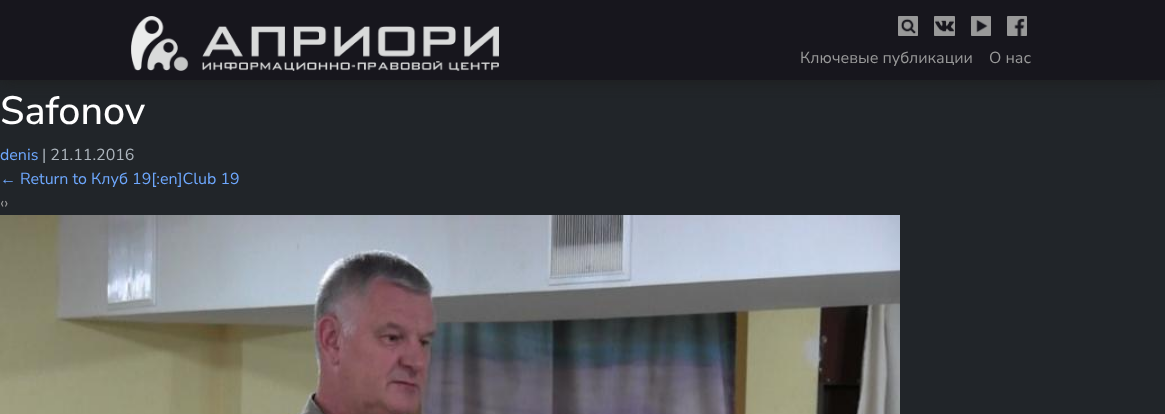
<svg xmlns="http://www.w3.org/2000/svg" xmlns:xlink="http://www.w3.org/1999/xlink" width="1165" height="414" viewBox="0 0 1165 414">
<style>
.cls-1{font:16px Nunito Sans;fill:#999999}
.cls-2{font:500 39.5px Nunito Sans;fill:#ffffff}
.cls-3{font:16px Nunito Sans;fill:#6ea8fe}
.cls-4{font:16px Nunito Sans;fill:#adb5bd}
.cls-5{font:16px Liberation Sans;fill:#6ea8fe}
</style>
<rect width="100%" height="100%" fill="#212529"/>
<rect fill="#1d1d1d" filter="blur(7.5px)" x="0" y="0" width="1165" height="80"/>
<rect fill="#17161d" x="0" y="0" width="1165" height="80"/>
<image xlink:href="image0.png" x="131" y="16" width="368" height="55"/>
<image xlink:href="image1.png" x="898" y="16" width="20" height="20"/>
<image xlink:href="image2.png" x="934" y="16" width="21" height="20"/>
<image xlink:href="image3.png" x="971" y="16" width="20" height="20"/>
<image xlink:href="image4.png" x="1007" y="16" width="20" height="20"/>
<image xlink:href="image5.png" x="0" y="215" width="900" height="199"/>
<text class="cls-1" x="800" y="63">Ключевые публикации</text>
<text class="cls-1" x="989" y="63">О нас</text>
<text class="cls-2" x="0" y="124">Safonov</text>
<text class="cls-3" x="0" y="160">denis</text>
<text class="cls-4" x="42" y="160">| 21.11.2016</text>
<text class="cls-5" x="0" y="184">←</text>
<text class="cls-3" x="20" y="184">Return to Клуб 19[:en]Club 19</text>
<text class="cls-1" x="0" y="208">‹›</text>
</svg>
